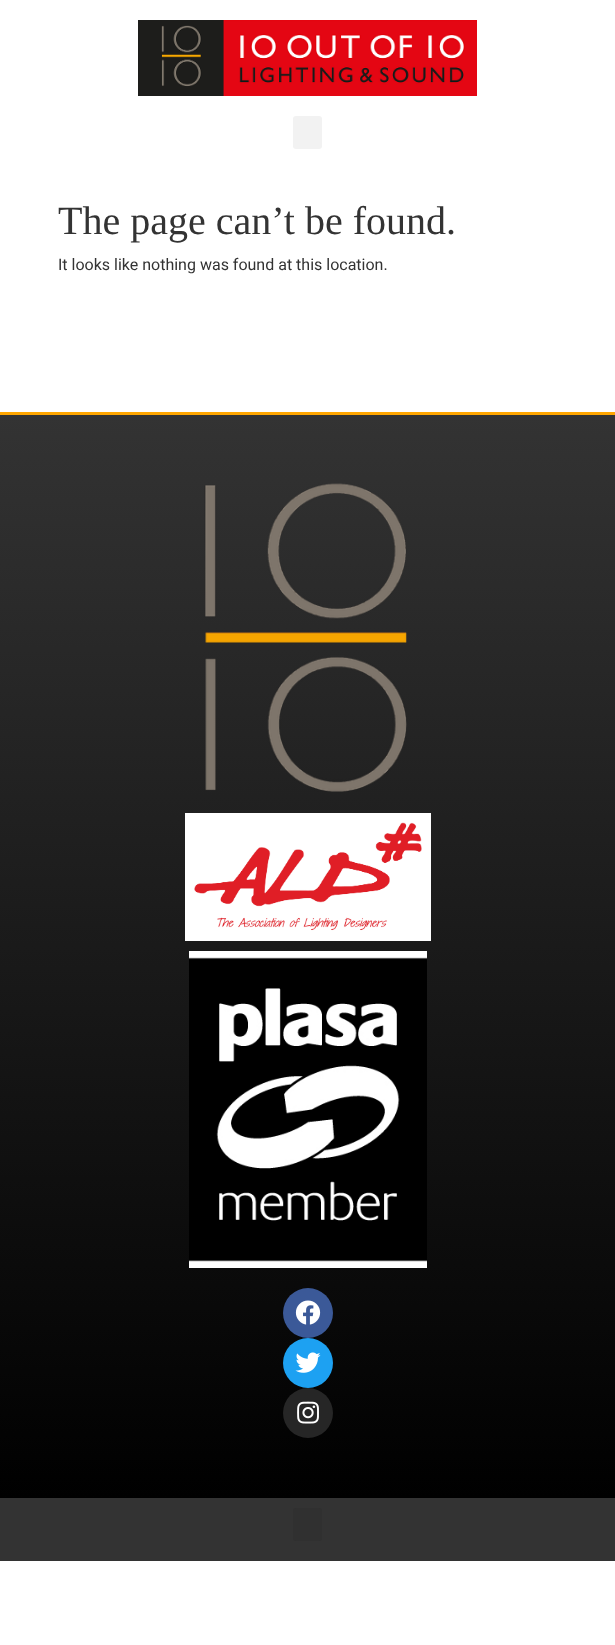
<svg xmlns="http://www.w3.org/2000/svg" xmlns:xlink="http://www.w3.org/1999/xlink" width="615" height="1645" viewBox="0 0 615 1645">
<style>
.cls-1{font:40px Liberation Serif;fill:#333333}
.cls-2{font:16px Roboto;fill:#333333}
</style>
<defs>
<linearGradient id="g1" gradientUnits="userSpaceOnUse" x1="307" y1="415" x2="308" y2="1498"><stop offset="0" stop-color="#333333"/><stop offset="1" stop-color="#000000"/></linearGradient>
</defs>
<rect width="100%" height="100%" fill="#ffffff"/>
<image xlink:href="image0.png" x="138" y="20" width="339" height="76"/>
<rect fill="#f2f2f2" x="293" y="116" width="29" height="33" rx="3"/>
<rect fill="url(#g1)" x="0" y="415" width="615" height="1083"/>
<rect fill="#ffa600" x="0" y="412" width="615" height="3"/>
<image xlink:href="image1.png" x="204" y="483" width="203" height="309"/>
<image xlink:href="image2.png" x="185" y="813" width="246" height="128"/>
<image xlink:href="image3.png" x="189" y="951" width="238" height="317"/>
<circle fill="#3b5998" cx="308" cy="1313" r="25"/>
<image xlink:href="image4.png" x="295" y="1300" width="26" height="25"/>
<circle fill="#1da1f2" cx="308" cy="1363" r="25"/>
<image xlink:href="image5.png" x="295" y="1352" width="26" height="21"/>
<circle fill="#262626" cx="308" cy="1413" r="25"/>
<image xlink:href="image6.png" x="297" y="1401" width="22" height="23"/>
<rect fill="#333333" x="0" y="1498" width="615" height="63"/>
<rect fill="#303030" x="293" y="1508" width="29" height="33" rx="3"/>
<text class="cls-1" x="58" y="234">The page can’t be found.</text>
<text class="cls-2" x="58" y="270">It looks like nothing was found at this location.</text>
</svg>
